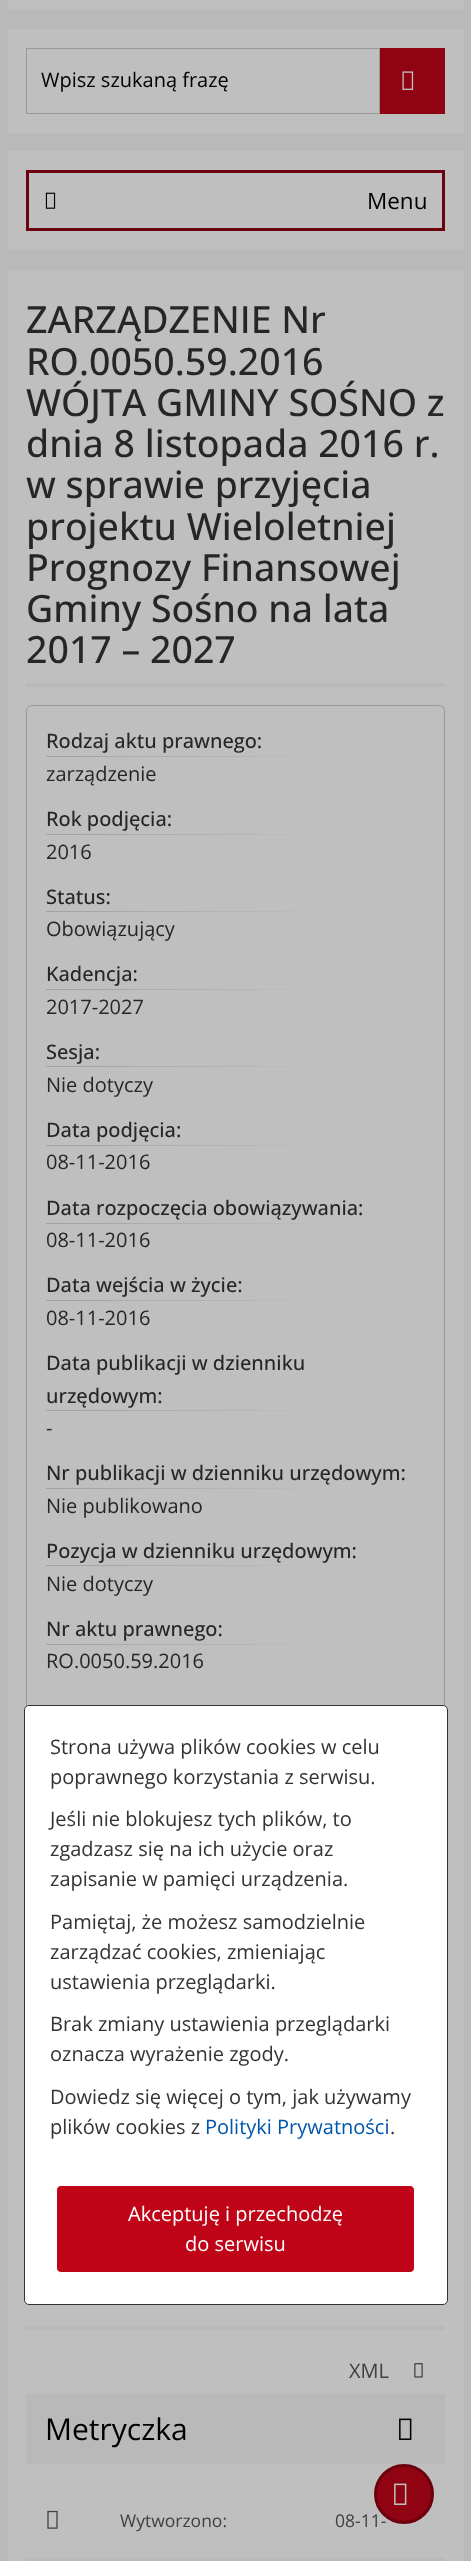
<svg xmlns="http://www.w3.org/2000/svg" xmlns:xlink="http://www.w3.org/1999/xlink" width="471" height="2561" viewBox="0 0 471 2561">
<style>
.cls-1{font:20px Open Sans;fill:#000000}
.cls-2{font:22.5px Open Sans;fill:#000000}
.cls-3{font:500 37.5px Open Sans;fill:#262626}
.cls-4{font:500 20px Open Sans;fill:#262626}
.cls-5{font:20px Open Sans;fill:#262626}
.cls-6{font:20px Open Sans;fill:#404040}
.cls-7{font:30px Open Sans;fill:#000000}
.cls-8{font:17.5px Open Sans;fill:#404040}
.cls-9{font:20px Open Sans;fill:#333333}
.cls-10{font:20px Open Sans;fill:#0055aa}
.cls-11{font:20px Open Sans;fill:#ffffff}
</style>
<defs>
<linearGradient id="g1" gradientUnits="userSpaceOnUse" x1="46" y1="757" x2="425" y2="757"><stop offset="0" stop-color="#a1a1a1"/><stop offset="0.75" stop-color="#bfbfbf"/></linearGradient>
<linearGradient id="g2" gradientUnits="userSpaceOnUse" x1="46" y1="834" x2="425" y2="834"><stop offset="0" stop-color="#a1a1a1"/><stop offset="0.75" stop-color="#bfbfbf"/></linearGradient>
<linearGradient id="g3" gradientUnits="userSpaceOnUse" x1="46" y1="912" x2="425" y2="912"><stop offset="0" stop-color="#a1a1a1"/><stop offset="0.75" stop-color="#bfbfbf"/></linearGradient>
<linearGradient id="g4" gradientUnits="userSpaceOnUse" x1="46" y1="989" x2="425" y2="989"><stop offset="0" stop-color="#a1a1a1"/><stop offset="0.75" stop-color="#bfbfbf"/></linearGradient>
<linearGradient id="g5" gradientUnits="userSpaceOnUse" x1="46" y1="1067" x2="425" y2="1067"><stop offset="0" stop-color="#a1a1a1"/><stop offset="0.75" stop-color="#bfbfbf"/></linearGradient>
<linearGradient id="g6" gradientUnits="userSpaceOnUse" x1="46" y1="1146" x2="425" y2="1146"><stop offset="0" stop-color="#a1a1a1"/><stop offset="0.75" stop-color="#bfbfbf"/></linearGradient>
<linearGradient id="g7" gradientUnits="userSpaceOnUse" x1="46" y1="1223" x2="425" y2="1223"><stop offset="0" stop-color="#a1a1a1"/><stop offset="0.75" stop-color="#bfbfbf"/></linearGradient>
<linearGradient id="g8" gradientUnits="userSpaceOnUse" x1="46" y1="1301" x2="425" y2="1301"><stop offset="0" stop-color="#a1a1a1"/><stop offset="0.75" stop-color="#bfbfbf"/></linearGradient>
<linearGradient id="g9" gradientUnits="userSpaceOnUse" x1="46" y1="1411" x2="425" y2="1411"><stop offset="0" stop-color="#a1a1a1"/><stop offset="0.75" stop-color="#bfbfbf"/></linearGradient>
<linearGradient id="g10" gradientUnits="userSpaceOnUse" x1="46" y1="1488" x2="425" y2="1488"><stop offset="0" stop-color="#a1a1a1"/><stop offset="0.75" stop-color="#bfbfbf"/></linearGradient>
<linearGradient id="g11" gradientUnits="userSpaceOnUse" x1="46" y1="1566" x2="425" y2="1566"><stop offset="0" stop-color="#a1a1a1"/><stop offset="0.75" stop-color="#bfbfbf"/></linearGradient>
<linearGradient id="g12" gradientUnits="userSpaceOnUse" x1="46" y1="1644" x2="425" y2="1644"><stop offset="0" stop-color="#a1a1a1"/><stop offset="0.75" stop-color="#bfbfbf"/></linearGradient>
</defs>
<rect width="100%" height="100%" fill="#b9b9b9"/>
<rect fill="#bfbfbf" x="8" y="0" width="456" height="10"/>
<rect fill="#bfbfbf" x="8" y="29" width="456" height="104"/>
<rect fill="none" stroke="#999999" x="26.5" y="48.5" width="353" height="65"/>
<rect fill="#900312" x="380" y="48" width="65" height="66"/>
<image xlink:href="image0.png" x="402" y="71" width="12" height="19"/>
<rect fill="#bfbfbf" x="8" y="151" width="456" height="99"/>
<rect fill="none" stroke="#6b020e" stroke-width="3" x="27.5" y="171.5" width="416" height="58"/>
<image xlink:href="image1.png" x="45" y="192" width="11" height="17"/>
<rect fill="#bfbfbf" x="8" y="270" width="456" height="2291"/>
<rect fill="#b9b9b9" x="26" y="683" width="419" height="4"/>
<rect fill="none" stroke="#999999" x="26.5" y="705.5" width="418" height="1388" rx="5.5"/>
<rect fill="url(#g1)" x="46" y="756" width="261" height="1"/>
<rect fill="url(#g2)" x="46" y="834" width="261" height="1"/>
<rect fill="url(#g3)" x="46" y="911" width="261" height="1"/>
<rect fill="url(#g4)" x="46" y="989" width="261" height="1"/>
<rect fill="url(#g5)" x="46" y="1066" width="261" height="1"/>
<rect fill="url(#g6)" x="46" y="1145" width="261" height="1"/>
<rect fill="url(#g7)" x="46" y="1223" width="261" height="1"/>
<rect fill="url(#g8)" x="46" y="1300" width="261" height="1"/>
<rect fill="url(#g9)" x="46" y="1410" width="261" height="1"/>
<rect fill="url(#g10)" x="46" y="1488" width="261" height="1"/>
<rect fill="url(#g11)" x="46" y="1565" width="261" height="1"/>
<rect fill="url(#g12)" x="46" y="1644" width="261" height="1"/>
<rect fill="#b9b9b9" x="26" y="2326" width="419" height="4"/>
<image xlink:href="image2.png" x="414" y="2363" width="9" height="15"/>
<rect fill="#b9b9b9" x="26" y="2394" width="419" height="70"/>
<image xlink:href="image3.png" x="399" y="2418" width="13" height="22"/>
<image xlink:href="image4.png" x="47" y="2510" width="11" height="19"/>
<rect fill="#b9b9b9" x="26" y="2558" width="419" height="3"/>
<rect fill="#ffffff" stroke="#333333" x="24.5" y="1705.5" width="423" height="599" rx="4.5"/>
<rect fill="#c00418" stroke="#ffffff" x="56.5" y="2185.5" width="358" height="87" rx="4.5"/>
<text class="cls-1" x="41" y="87">Wpisz szukaną frazę</text>
<text class="cls-2" x="367" y="209">Menu</text>
<text class="cls-3"><tspan x="26" y="333">ZARZĄDZENIE Nr</tspan><tspan x="26" y="375">RO.0050.59.2016</tspan><tspan x="26" y="416">WÓJTA GMINY SOŚNO z</tspan><tspan x="26" y="457">dnia 8 listopada 2016 r.</tspan><tspan x="26" y="498">w sprawie przyjęcia</tspan><tspan x="26" y="540">projektu Wieloletniej</tspan><tspan x="26" y="581">Prognozy Finansowej</tspan><tspan x="26" y="622">Gminy Sośno na lata</tspan><tspan x="26" y="663">2017 – 2027</tspan></text>
<text class="cls-4" x="46" y="748">Rodzaj aktu prawnego:</text>
<text class="cls-5" x="46" y="781">zarządzenie</text>
<text class="cls-4" x="46" y="826">Rok podjęcia:</text>
<text class="cls-5" x="46" y="859">2016</text>
<text class="cls-4" x="46" y="904">Status:</text>
<text class="cls-5" x="46" y="936">Obowiązujący</text>
<text class="cls-4" x="46" y="981">Kadencja:</text>
<text class="cls-5" x="46" y="1014">2017-2027</text>
<text class="cls-4" x="46" y="1059">Sesja:</text>
<text class="cls-5" x="46" y="1092">Nie dotyczy</text>
<text class="cls-4" x="46" y="1137">Data podjęcia:</text>
<text class="cls-5" x="46" y="1169">08-11-2016</text>
<text class="cls-4" x="46" y="1215">Data rozpoczęcia obowiązywania:</text>
<text class="cls-5" x="46" y="1247">08-11-2016</text>
<text class="cls-4" x="46" y="1292">Data wejścia w życie:</text>
<text class="cls-5" x="46" y="1325">08-11-2016</text>
<text class="cls-4"><tspan x="46" y="1370">Data publikacji w dzienniku</tspan><tspan x="46" y="1403">urzędowym:</tspan></text>
<text class="cls-5" x="46" y="1435">-</text>
<text class="cls-4" x="46" y="1480">Nr publikacji w dzienniku urzędowym:</text>
<text class="cls-5" x="46" y="1513">Nie publikowano</text>
<text class="cls-4" x="46" y="1558">Pozycja w dzienniku urzędowym:</text>
<text class="cls-5" x="46" y="1591">Nie dotyczy</text>
<text class="cls-4" x="46" y="1636">Nr aktu prawnego:</text>
<text class="cls-5" x="46" y="1668">RO.0050.59.2016</text>
<text class="cls-6" x="349" y="2378">XML</text>
<text class="cls-7" x="45" y="2440">Metryczka</text>
<text class="cls-8" x="120" y="2527">Wytworzono:</text>
<text class="cls-8" x="335" y="2527">08-11-</text>
<text class="cls-9"><tspan x="50" y="1754">Strona używa plików cookies w celu</tspan><tspan x="50" y="1784">poprawnego korzystania z serwisu.</tspan></text>
<text class="cls-9"><tspan x="50" y="1826">Jeśli nie blokujesz tych plików, to</tspan><tspan x="50" y="1856">zgadzasz się na ich użycie oraz</tspan><tspan x="50" y="1886">zapisanie w pamięci urządzenia.</tspan></text>
<text class="cls-9"><tspan x="50" y="1929">Pamiętaj, że możesz samodzielnie</tspan><tspan x="50" y="1959">zarządzać cookies, zmieniając</tspan><tspan x="50" y="1989">ustawienia przeglądarki.</tspan></text>
<text class="cls-9"><tspan x="50" y="2031">Brak zmiany ustawienia przeglądarki</tspan><tspan x="50" y="2061">oznacza wyrażenie zgody.</tspan></text>
<text class="cls-9"><tspan x="50" y="2104">Dowiedz się więcej o tym, jak używamy</tspan><tspan x="50" y="2134">plików cookies z</tspan></text>
<text class="cls-10" x="205" y="2134">Polityki Prywatności</text>
<text class="cls-9" x="390" y="2134">.</text>
<text class="cls-11" x="128" y="2221">Akceptuję i przechodzę</text>
<text class="cls-11" x="185" y="2251">do serwisu</text>
<circle fill="#900312" stroke="#6b020e" stroke-width="3" cx="404" cy="2494" r="28.5"/>
<image xlink:href="image5.png" x="394" y="2483" width="13" height="22"/>
</svg>
